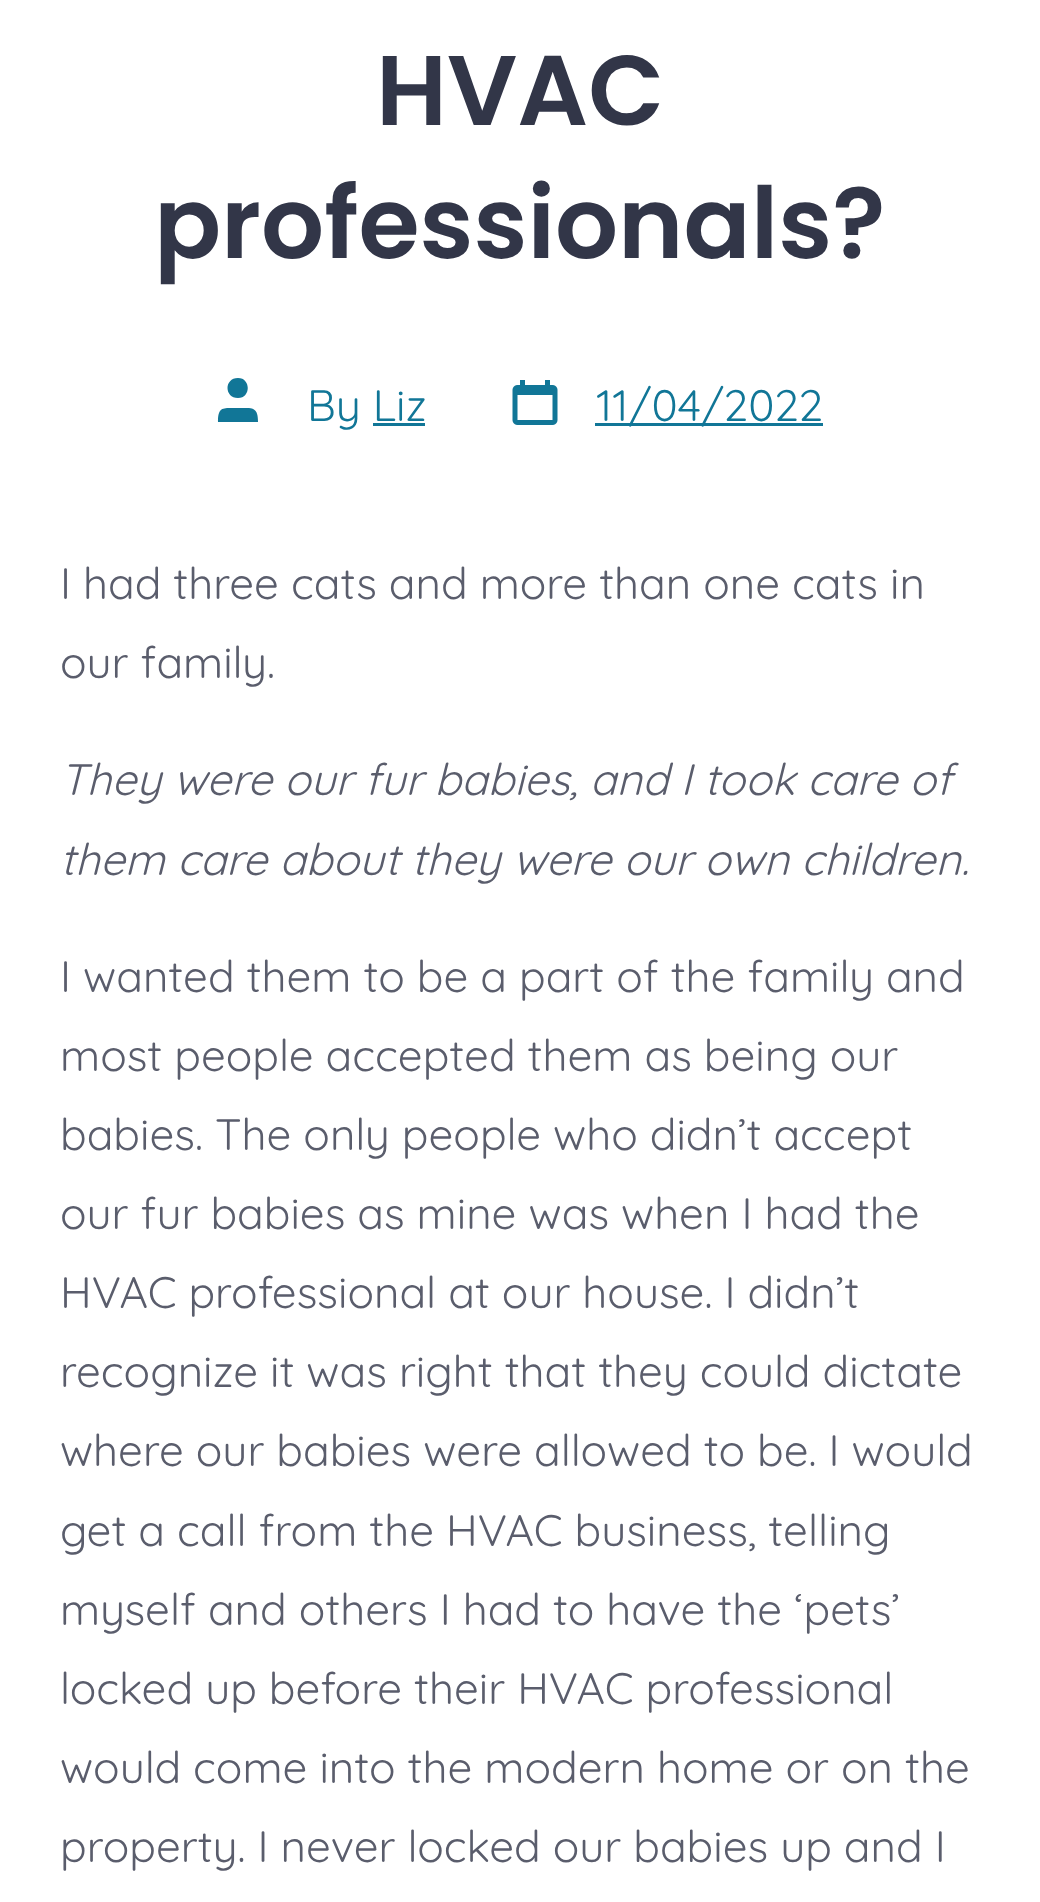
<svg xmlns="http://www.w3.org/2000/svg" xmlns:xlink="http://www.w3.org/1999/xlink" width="1040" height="1902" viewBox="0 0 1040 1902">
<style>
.cls-1{font:600 99px Poppins;fill:#323648}
.cls-2{font:44px Quicksand;fill:#117697}
.cls-3{font:44px Quicksand;fill:#5a5d6c}
.cls-4{font:italic 44px Quicksand;fill:#5a5d6c}
</style>
<rect width="100%" height="100%" fill="#ffffff"/>
<path fill="#117697" d="M258 422H218C218 406 223 408 238 408C252 408 258 406 258 422ZM238 398C224 398 224 378 238 378C251 378 251 398 238 398Z"/>
<rect fill="#117697" x="373" y="423" width="52" height="3"/>
<image xlink:href="image0.png" x="512" y="380" width="46" height="45"/>
<rect fill="#117697" x="595" y="423" width="228" height="3"/>
<text class="cls-1" x="376" y="125">HVAC</text>
<text class="cls-1" x="154" y="258">professionals?</text>
<text class="cls-2" x="307" y="421">By Liz</text>
<text class="cls-2" x="596" y="421">11/04/2022</text>
<text class="cls-3"><tspan x="60" y="599">I had three cats and more than one cats in</tspan><tspan x="60" y="678">our family.</tspan></text>
<text class="cls-4"><tspan x="60" y="795">They were our fur babies, and I took care of</tspan><tspan x="60" y="875">them care about they were our own children.</tspan></text>
<text class="cls-3"><tspan x="60" y="992">I wanted them to be a part of the family and</tspan><tspan x="60" y="1071">most people accepted them as being our</tspan><tspan x="60" y="1150">babies. The only people who didn’t accept</tspan><tspan x="60" y="1229">our fur babies as mine was when I had the</tspan><tspan x="60" y="1308">HVAC professional at our house. I didn’t</tspan><tspan x="60" y="1387">recognize it was right that they could dictate</tspan><tspan x="60" y="1466">where our babies were allowed to be. I would</tspan><tspan x="60" y="1546">get a call from the HVAC business, telling</tspan><tspan x="60" y="1625">myself and others I had to have the ‘pets’</tspan><tspan x="60" y="1704">locked up before their HVAC professional</tspan><tspan x="60" y="1783">would come into the modern home or on the</tspan><tspan x="60" y="1862">property. I never locked our babies up and I</tspan></text>
</svg>
